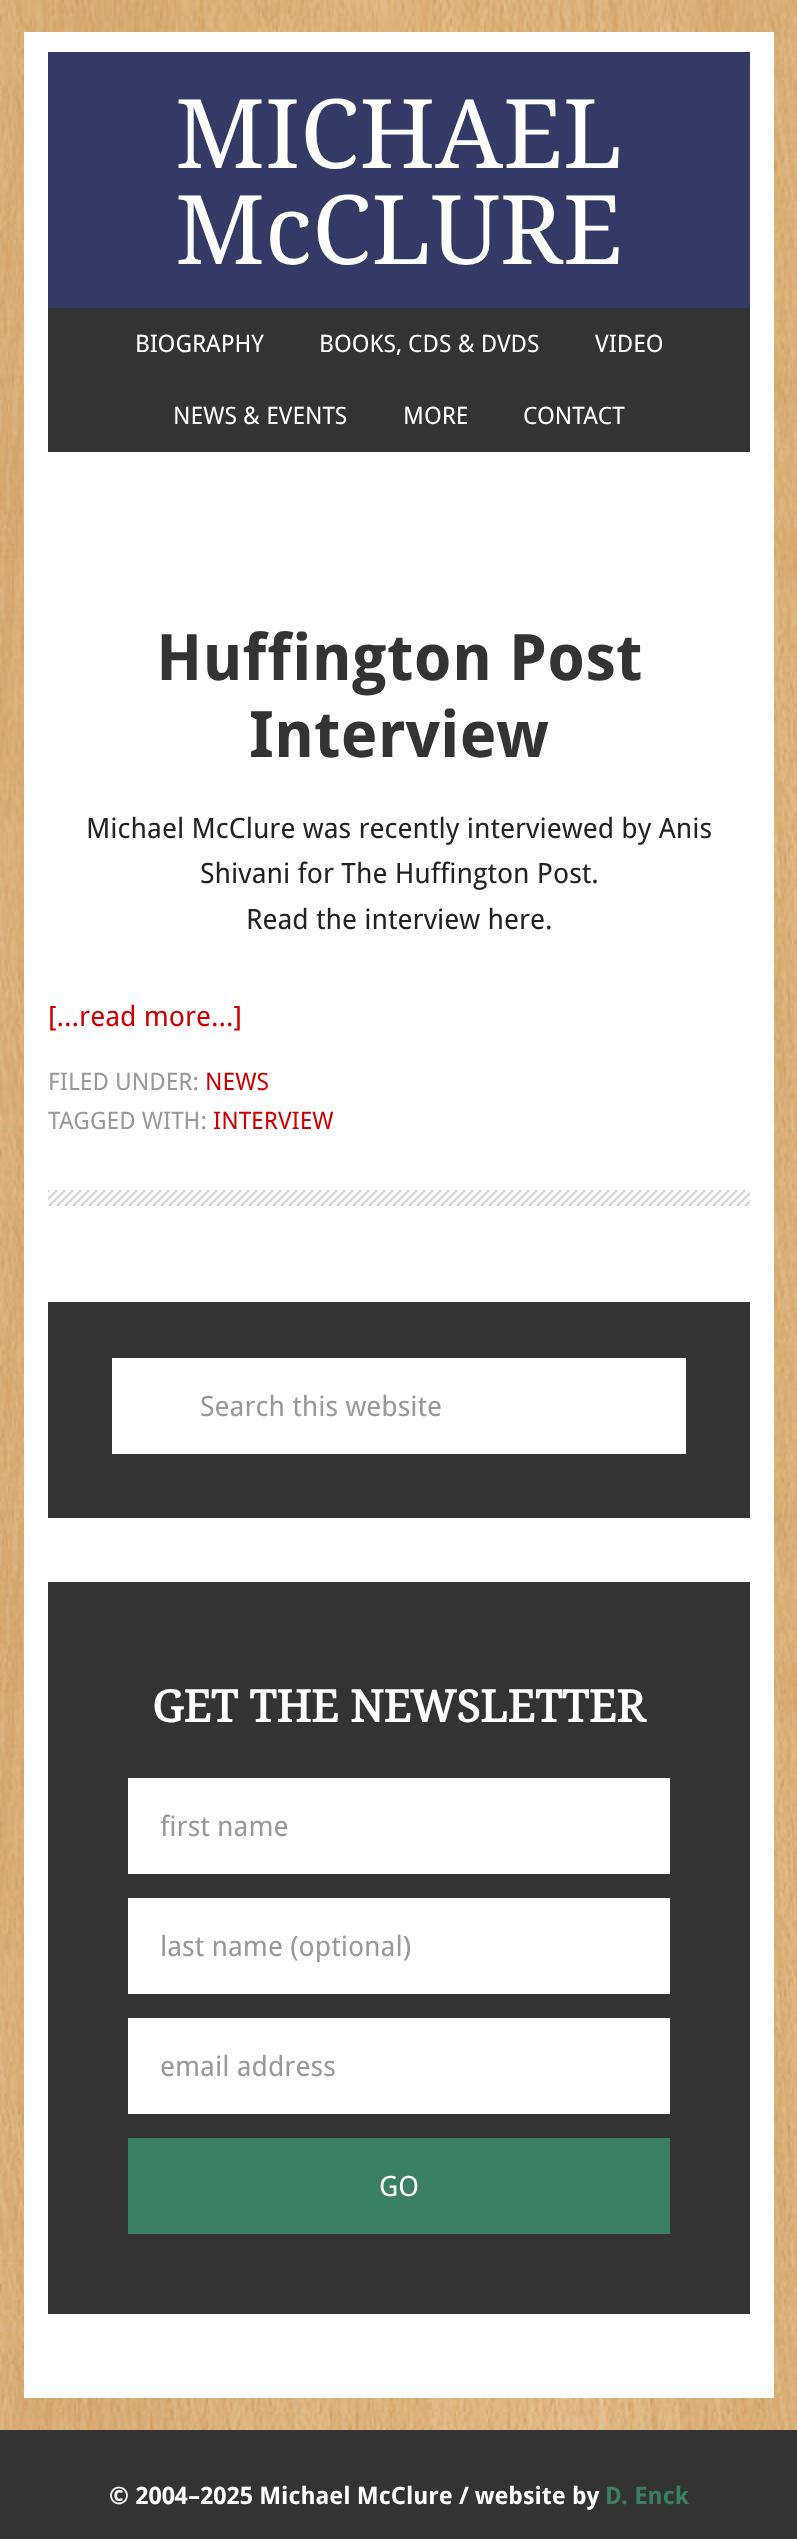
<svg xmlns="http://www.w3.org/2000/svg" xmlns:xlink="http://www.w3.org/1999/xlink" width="797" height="2539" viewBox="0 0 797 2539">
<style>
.cls-1{font:96px Noto Serif;fill:#ffffff}
.cls-2{font:24px Droid Sans;fill:#ffffff}
.cls-3{font:bold 64px Droid Sans;fill:#333333}
.cls-4{font:28px Droid Sans;fill:#222222}
.cls-5{font:28px Droid Sans;fill:#cc0000}
.cls-6{font:24px Droid Sans;fill:#999999}
.cls-7{font:24px Droid Sans;fill:#cc0000}
.cls-8{font:28px Droid Sans;fill:#999999}
.cls-9{font:bold 44px Noto Serif;fill:#ffffff}
.cls-10{font:28px Droid Sans;fill:#ffffff}
.cls-11{font:bold 24px Droid Sans;fill:#ffffff}
.cls-12{font:bold 24px Droid Sans;fill:#3b8064}
</style>
<defs>
<clipPath id="clip1"><rect x="160" y="1930" width="478" height="32"/></clipPath>
</defs>
<rect width="100%" height="100%" fill="#ffffff"/>
<image xlink:href="image0.png" x="0" y="0" width="797" height="2430"/>
<rect fill="#ffffff" x="24" y="32" width="750" height="2366"/>
<rect fill="#333a66" x="48" y="52" width="702" height="256"/>
<rect fill="#333333" x="48" y="308" width="702" height="144"/>
<image xlink:href="image1.png" x="48" y="1190" width="702" height="16"/>
<rect fill="#333333" x="48" y="1302" width="702" height="216"/>
<rect fill="#ffffff" x="112" y="1358" width="574" height="96"/>
<rect fill="#333333" x="48" y="1582" width="702" height="732"/>
<rect fill="#ffffff" x="128" y="1778" width="542" height="96"/>
<rect fill="#ffffff" x="128" y="1898" width="542" height="96"/>
<rect fill="#ffffff" x="128" y="2018" width="542" height="96"/>
<rect fill="#3b8064" x="128" y="2138" width="542" height="96"/>
<rect fill="#333333" x="0" y="2430" width="797" height="109"/>
<text class="cls-1"><tspan x="175" y="168">MICHAEL</tspan><tspan x="175" y="264">McCLURE</tspan></text>
<text class="cls-2" x="135" y="352">BIOGRAPHY</text>
<text class="cls-2" x="319" y="352">BOOKS, CDS &amp; DVDS</text>
<text class="cls-2" x="595" y="352">VIDEO</text>
<text class="cls-2" x="173" y="424">NEWS &amp; EVENTS</text>
<text class="cls-2" x="403" y="424">MORE</text>
<text class="cls-2" x="523" y="424">CONTACT</text>
<text class="cls-3" x="156" y="680">Huffington Post</text>
<text class="cls-3" x="249" y="757">Interview</text>
<text class="cls-4" x="86" y="838">Michael McClure was recently interviewed by Anis</text>
<text class="cls-4" x="200" y="883">Shivani for The Huffington Post.</text>
<text class="cls-4" x="246" y="929">Read the interview here.</text>
<text class="cls-5" x="48" y="1026">[...read more...]</text>
<text class="cls-6" x="48" y="1090">FILED UNDER:</text>
<text class="cls-7" x="205" y="1090">NEWS</text>
<text class="cls-6" x="48" y="1129">TAGGED WITH:</text>
<text class="cls-7" x="213" y="1129">INTERVIEW</text>
<text class="cls-8" x="200" y="1416">Search this website</text>
<text class="cls-9" x="152" y="1722">GET THE NEWSLETTER</text>
<text class="cls-8" x="160" y="1836">first name</text>
<g clip-path="url(#clip1)">
<text class="cls-8" x="160" y="1956">last name (optional)</text>
</g>
<text class="cls-8" x="160" y="2076">email address</text>
<text class="cls-10" x="379" y="2196">GO</text>
<text class="cls-11" x="109" y="2504">© 2004–2025 Michael McClure / website by</text>
<text class="cls-12" x="605" y="2504">D. Enck</text>
</svg>
